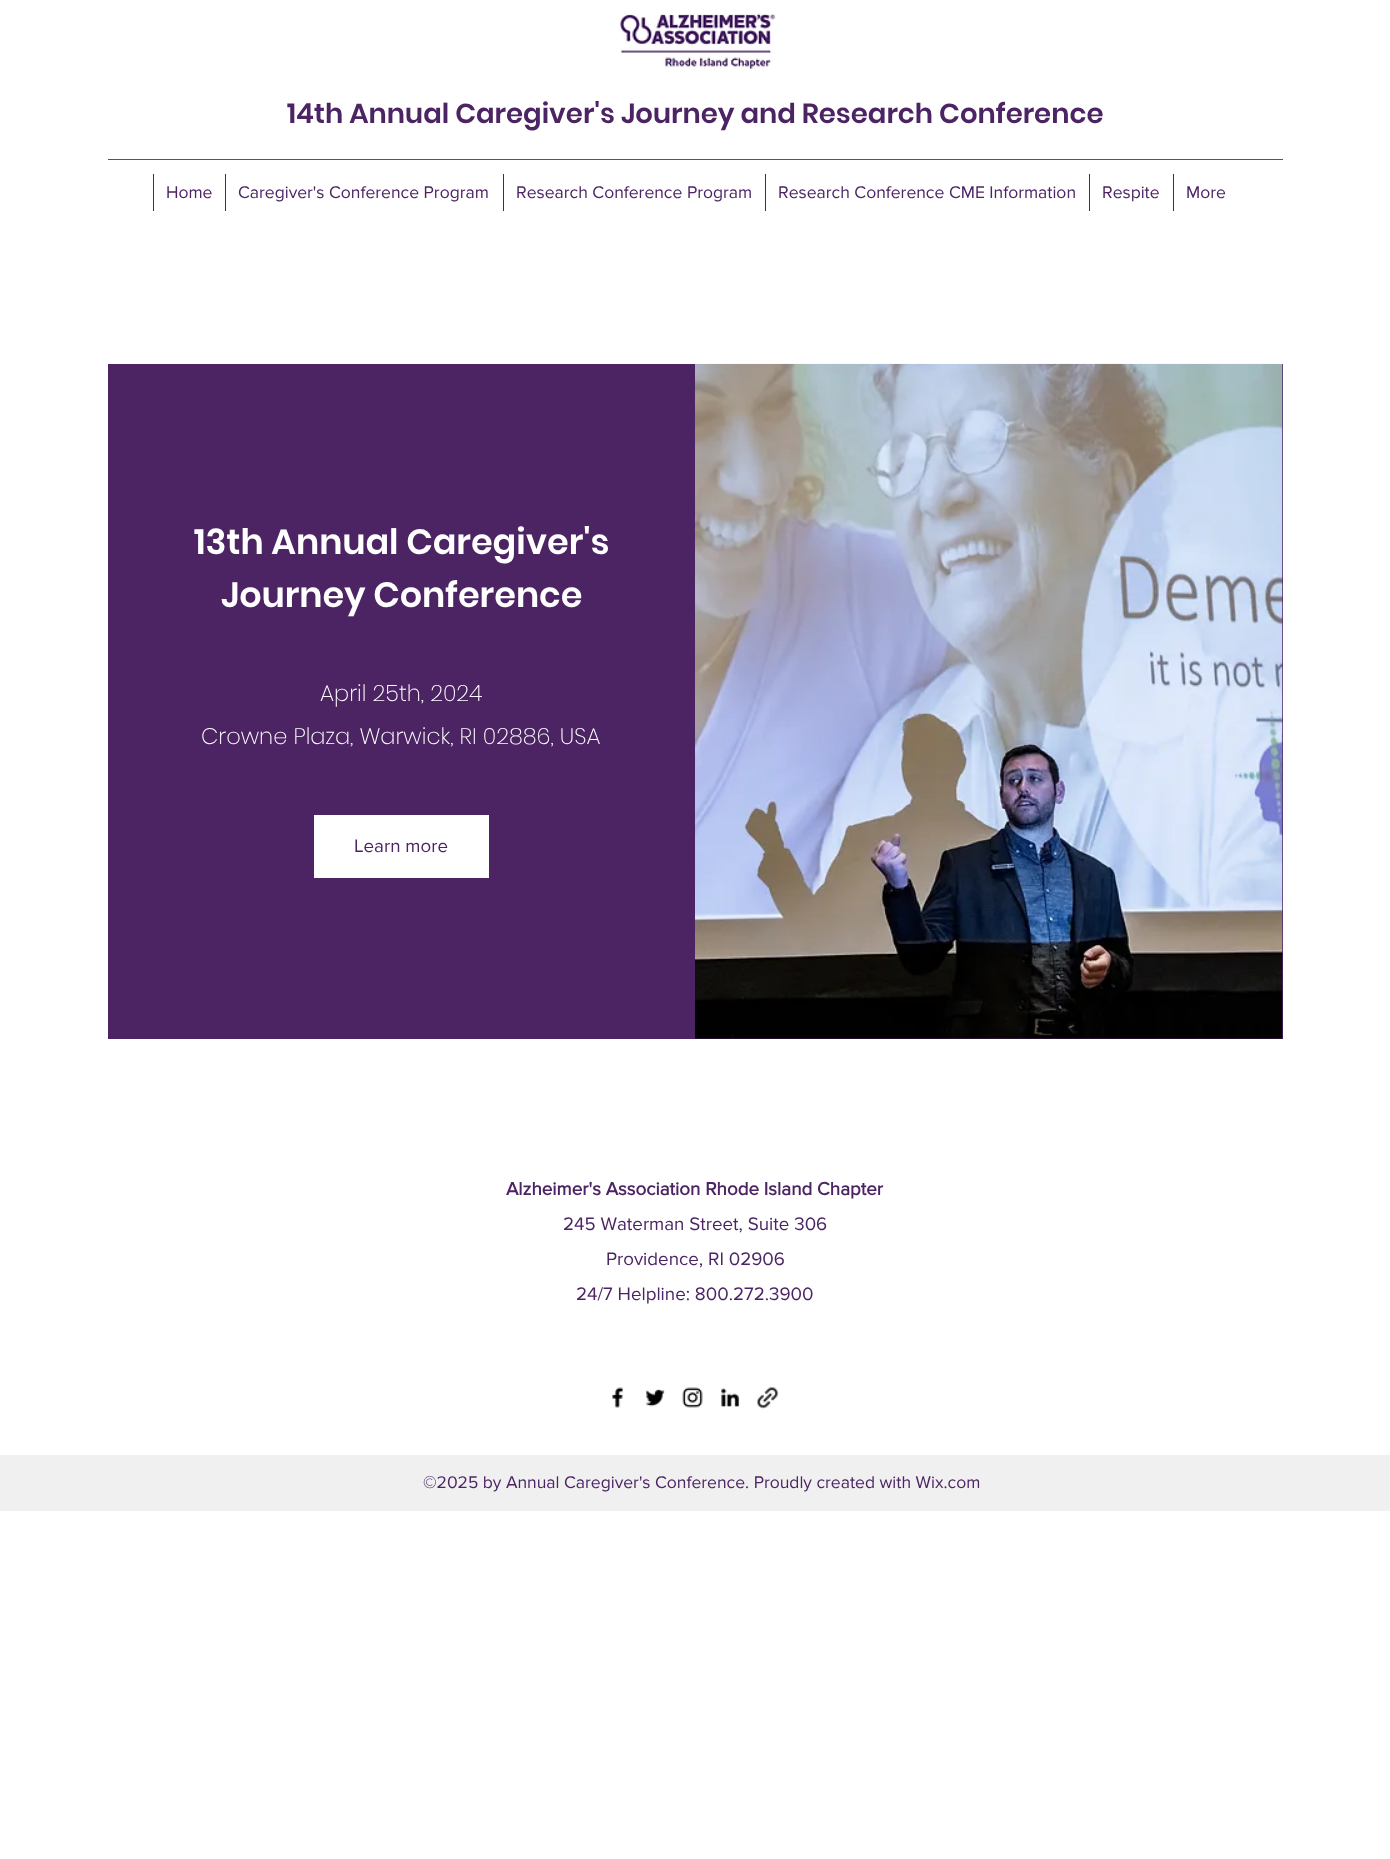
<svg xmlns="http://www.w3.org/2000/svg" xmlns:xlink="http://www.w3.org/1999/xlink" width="1390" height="1859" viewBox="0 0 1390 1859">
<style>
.cls-1{font:600 27.5px Poppins;fill:#4c2464}
.cls-2{font:17.5px 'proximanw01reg';fill:#4c2464}
.cls-3{font:600 35px Poppins;fill:#ffffff}
.cls-4{font:200 22.5px Poppins;fill:#ffffff}
.cls-5{font:18.75px 'proximanw01reg';fill:#4c2464}
.cls-6{font:bold 18.75px 'proximanw01reg';fill:#4c2464}
</style>
<rect width="100%" height="100%" fill="#ffffff"/>
<image xlink:href="image0.png" x="619" y="13" width="157" height="56"/>
<rect fill="#67457b" x="108" y="159" width="1175" height="1"/>
<rect fill="#4c2464" x="153" y="174" width="1" height="37"/>
<rect fill="#4c2464" x="225" y="174" width="1" height="37"/>
<rect fill="#4c2464" x="503" y="174" width="1" height="37"/>
<rect fill="#4c2464" x="765" y="174" width="1" height="37"/>
<rect fill="#4c2464" x="1089" y="174" width="1" height="37"/>
<rect fill="#4c2464" x="1173" y="174" width="1" height="37"/>
<rect fill="#4c2464" x="108" y="364" width="1175" height="675"/>
<rect fill="#ffffff" x="314" y="815" width="175" height="63"/>
<image xlink:href="image1.png" x="695" y="363" width="588" height="676"/>
<image xlink:href="image2.png" x="612" y="1387" width="12" height="21"/>
<image xlink:href="image3.png" x="645" y="1389" width="20" height="18"/>
<image xlink:href="image4.png" x="682" y="1387" width="21" height="21"/>
<image xlink:href="image5.png" x="721" y="1388" width="19" height="19"/>
<image xlink:href="image6.png" x="756" y="1387" width="23" height="22"/>
<rect fill="#f0f0f0" x="0" y="1455" width="1390" height="56"/>
<text class="cls-1" x="287" y="123">14th Annual Caregiver's Journey and Research Conference</text>
<text class="cls-2" x="166" y="198">Home</text>
<text class="cls-2" x="238" y="198">Caregiver's Conference Program</text>
<text class="cls-2" x="516" y="198">Research Conference Program</text>
<text class="cls-2" x="778" y="198">Research Conference CME Information</text>
<text class="cls-2" x="1102" y="198">Respite</text>
<text class="cls-2" x="1186" y="198">More</text>
<text class="cls-3" x="194" y="554">13th Annual Caregiver's</text>
<text class="cls-3" x="221" y="607">Journey Conference</text>
<text class="cls-4" x="320" y="701">April 25th, 2024</text>
<text class="cls-4" x="201" y="744">Crowne Plaza, Warwick, RI 02886, USA</text>
<text class="cls-5" x="354" y="852">Learn more</text>
<text class="cls-6" x="506" y="1195">Alzheimer's Association Rhode Island Chapter</text>
<text class="cls-5" x="563" y="1230">245 Waterman Street, Suite 306</text>
<text class="cls-5" x="606" y="1265">Providence, RI 02906</text>
<text class="cls-5" x="576" y="1300">24/7 Helpline: 800.272.3900</text>
<text class="cls-2" x="423" y="1488">©2025 by Annual Caregiver's Conference. Proudly created with Wix.com</text>
</svg>
